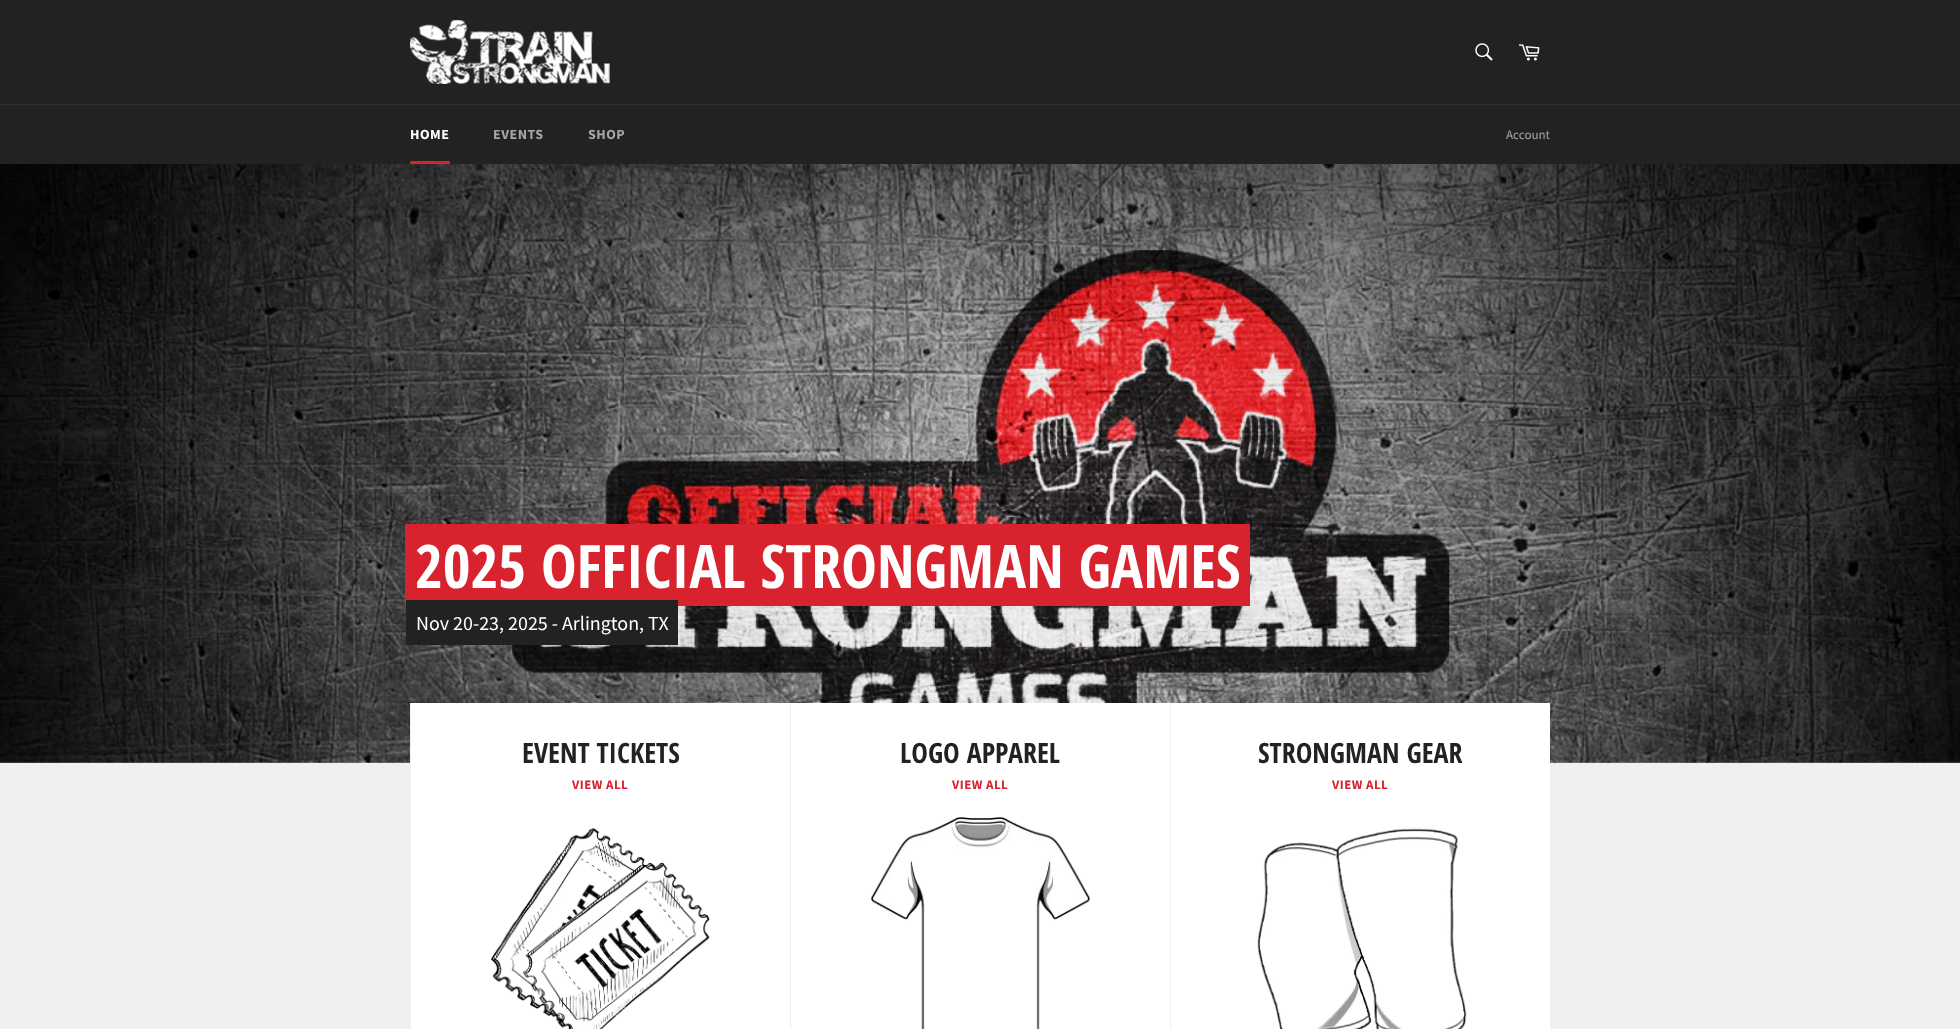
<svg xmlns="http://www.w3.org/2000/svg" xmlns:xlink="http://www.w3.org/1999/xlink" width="1960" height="1029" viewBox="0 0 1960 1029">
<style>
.cls-1{font:bold 14px Source Sans Pro;letter-spacing:0.5px;fill:#ffffff}
.cls-2{font:bold 14px Source Sans Pro;letter-spacing:0.5px;fill:#a7a7a7}
.cls-3{font:13px Source Sans Pro;fill:#a7a7a7}
.cls-4{font:bold 60px Open Sans Condensed;fill:#ffffff}
.cls-5{font:20px Source Sans Pro;fill:#ffffff}
.cls-6{font:bold 28px Open Sans Condensed;fill:#222222}
.cls-7{font:bold 13px Source Sans Pro;letter-spacing:0.5px;fill:#d8232f}
</style>
<rect width="100%" height="100%" fill="#f0f0f0"/>
<rect fill="#222222" x="0" y="0" width="1960" height="104"/>
<image xlink:href="image0.png" x="410" y="20" width="200" height="64"/>
<image xlink:href="image1.png" x="1475" y="43" width="18" height="18"/>
<image xlink:href="image2.png" x="1518" y="44" width="22" height="17"/>
<rect fill="#222222" x="0" y="105" width="1960" height="59"/>
<rect fill="#2f2f2f" x="0" y="104" width="1960" height="1"/>
<rect fill="#d8232f" x="410" y="161" width="40" height="3"/>
<image xlink:href="image3.png" x="0" y="164" width="1960" height="599"/>
<rect fill="#d8232f" x="405" y="524" width="845" height="82"/>
<rect fill="#222222" x="406" y="600" width="272" height="45"/>
<rect fill="#ffffff" x="411" y="703" width="379" height="326"/>
<rect fill="#f0f0f0" x="410" y="703" width="1" height="60"/>
<image xlink:href="image4.png" x="491" y="827" width="219" height="202"/>
<rect fill="#ffffff" x="791" y="703" width="379" height="326"/>
<rect fill="#f0f0f0" x="790" y="703" width="1" height="60"/>
<image xlink:href="image5.png" x="871" y="817" width="219" height="212"/>
<rect fill="#ffffff" x="1171" y="703" width="379" height="326"/>
<rect fill="#f0f0f0" x="1170" y="703" width="1" height="60"/>
<image xlink:href="image6.png" x="1257" y="828" width="210" height="201"/>
<text class="cls-1" x="410" y="139">HOME</text>
<text class="cls-2" x="493" y="139">EVENTS</text>
<text class="cls-2" x="588" y="139">SHOP</text>
<text class="cls-3" x="1506" y="139">Account</text>
<text class="cls-4" x="415" y="588">2025 OFFICIAL STRONGMAN GAMES</text>
<text class="cls-5" x="416" y="630">Nov 20-23, 2025 - Arlington, TX</text>
<text class="cls-6" x="522" y="763">EVENT TICKETS</text>
<text class="cls-7" x="572" y="789">VIEW ALL</text>
<text class="cls-6" x="900" y="763">LOGO APPAREL</text>
<text class="cls-7" x="952" y="789">VIEW ALL</text>
<text class="cls-6" x="1258" y="763">STRONGMAN GEAR</text>
<text class="cls-7" x="1332" y="789">VIEW ALL</text>
</svg>
